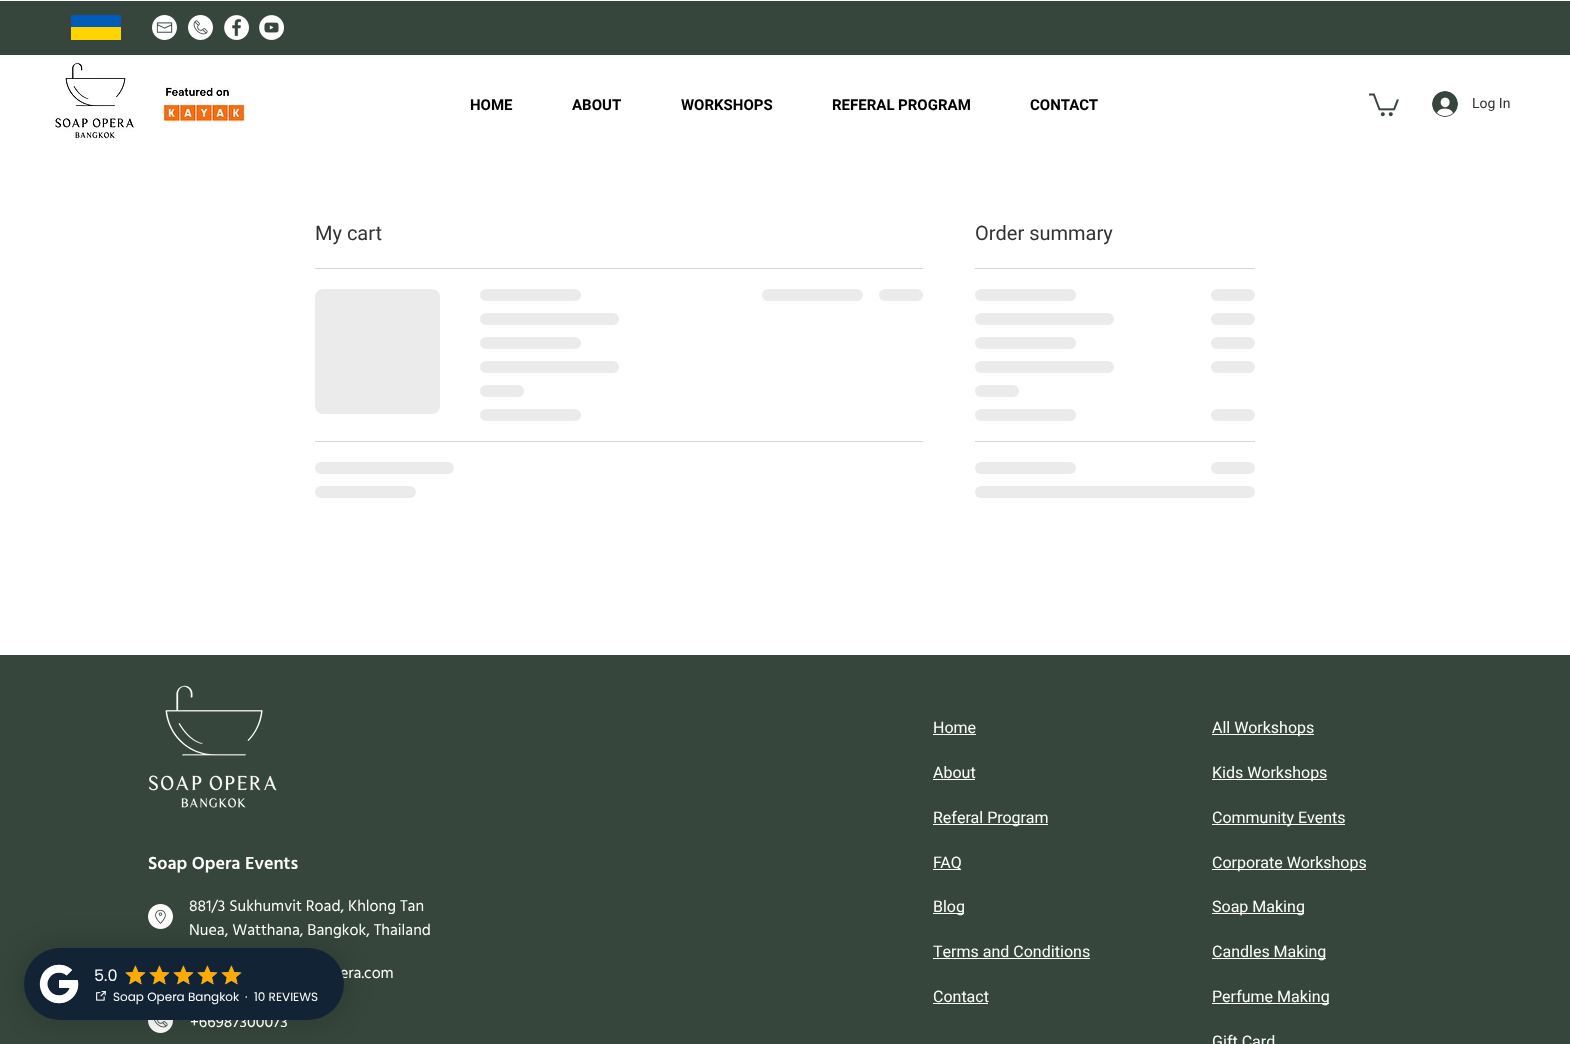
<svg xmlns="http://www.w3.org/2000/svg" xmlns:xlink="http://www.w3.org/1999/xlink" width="1570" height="1044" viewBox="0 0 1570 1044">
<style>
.cls-1{font:bold 15px Heebo;fill:#000000}
.cls-2{font:14px Heebo;fill:#323232}
.cls-3{font:20px Heebo;fill:#323232}
.cls-4{font:600 18px Hind Madurai;fill:#ffffff}
.cls-5{font:16px Hind Madurai;fill:#ffffff}
.cls-6{font:16px Heebo;fill:#ffffff}
.cls-7{font:16px Poppins;fill:#ffffff}
.cls-8{font:12px Poppins;fill:#ffffff}
</style>
<defs>
<linearGradient id="g1" gradientUnits="userSpaceOnUse" x1="315" y1="352" x2="815" y2="352"><stop offset="0.25" stop-color="#ebebeb"/><stop offset="0.37" stop-color="#d6d6d6"/><stop offset="0.63" stop-color="#ebebeb"/></linearGradient>
<linearGradient id="g2" gradientUnits="userSpaceOnUse" x1="480" y1="295" x2="884" y2="295"><stop offset="0.25" stop-color="#ebebeb"/><stop offset="0.37" stop-color="#d6d6d6"/><stop offset="0.63" stop-color="#ebebeb"/></linearGradient>
<linearGradient id="g3" gradientUnits="userSpaceOnUse" x1="480" y1="319" x2="1036" y2="319"><stop offset="0.25" stop-color="#ebebeb"/><stop offset="0.37" stop-color="#d6d6d6"/><stop offset="0.63" stop-color="#ebebeb"/></linearGradient>
<linearGradient id="g4" gradientUnits="userSpaceOnUse" x1="480" y1="343" x2="884" y2="343"><stop offset="0.25" stop-color="#ebebeb"/><stop offset="0.37" stop-color="#d6d6d6"/><stop offset="0.63" stop-color="#ebebeb"/></linearGradient>
<linearGradient id="g5" gradientUnits="userSpaceOnUse" x1="480" y1="367" x2="1036" y2="367"><stop offset="0.25" stop-color="#ebebeb"/><stop offset="0.37" stop-color="#d6d6d6"/><stop offset="0.63" stop-color="#ebebeb"/></linearGradient>
<linearGradient id="g6" gradientUnits="userSpaceOnUse" x1="480" y1="391" x2="656" y2="391"><stop offset="0.25" stop-color="#ebebeb"/><stop offset="0.37" stop-color="#d6d6d6"/><stop offset="0.63" stop-color="#ebebeb"/></linearGradient>
<linearGradient id="g7" gradientUnits="userSpaceOnUse" x1="480" y1="415" x2="884" y2="415"><stop offset="0.25" stop-color="#ebebeb"/><stop offset="0.37" stop-color="#d6d6d6"/><stop offset="0.63" stop-color="#ebebeb"/></linearGradient>
<linearGradient id="g8" gradientUnits="userSpaceOnUse" x1="762" y1="295" x2="1166" y2="295"><stop offset="0.25" stop-color="#ebebeb"/><stop offset="0.37" stop-color="#d6d6d6"/><stop offset="0.63" stop-color="#ebebeb"/></linearGradient>
<linearGradient id="g9" gradientUnits="userSpaceOnUse" x1="879" y1="295" x2="1055" y2="295"><stop offset="0.25" stop-color="#ebebeb"/><stop offset="0.37" stop-color="#d6d6d6"/><stop offset="0.63" stop-color="#ebebeb"/></linearGradient>
<linearGradient id="g10" gradientUnits="userSpaceOnUse" x1="315" y1="468" x2="871" y2="468"><stop offset="0.25" stop-color="#ebebeb"/><stop offset="0.37" stop-color="#d6d6d6"/><stop offset="0.63" stop-color="#ebebeb"/></linearGradient>
<linearGradient id="g11" gradientUnits="userSpaceOnUse" x1="315" y1="492" x2="719" y2="492"><stop offset="0.25" stop-color="#ebebeb"/><stop offset="0.37" stop-color="#d6d6d6"/><stop offset="0.63" stop-color="#ebebeb"/></linearGradient>
<linearGradient id="g12" gradientUnits="userSpaceOnUse" x1="975" y1="295" x2="1379" y2="295"><stop offset="0.25" stop-color="#ebebeb"/><stop offset="0.37" stop-color="#d6d6d6"/><stop offset="0.63" stop-color="#ebebeb"/></linearGradient>
<linearGradient id="g13" gradientUnits="userSpaceOnUse" x1="1211" y1="295" x2="1387" y2="295"><stop offset="0.25" stop-color="#ebebeb"/><stop offset="0.37" stop-color="#d6d6d6"/><stop offset="0.63" stop-color="#ebebeb"/></linearGradient>
<linearGradient id="g14" gradientUnits="userSpaceOnUse" x1="975" y1="319" x2="1531" y2="319"><stop offset="0.25" stop-color="#ebebeb"/><stop offset="0.37" stop-color="#d6d6d6"/><stop offset="0.63" stop-color="#ebebeb"/></linearGradient>
<linearGradient id="g15" gradientUnits="userSpaceOnUse" x1="1211" y1="319" x2="1387" y2="319"><stop offset="0.25" stop-color="#ebebeb"/><stop offset="0.37" stop-color="#d6d6d6"/><stop offset="0.63" stop-color="#ebebeb"/></linearGradient>
<linearGradient id="g16" gradientUnits="userSpaceOnUse" x1="975" y1="343" x2="1379" y2="343"><stop offset="0.25" stop-color="#ebebeb"/><stop offset="0.37" stop-color="#d6d6d6"/><stop offset="0.63" stop-color="#ebebeb"/></linearGradient>
<linearGradient id="g17" gradientUnits="userSpaceOnUse" x1="1211" y1="343" x2="1387" y2="343"><stop offset="0.25" stop-color="#ebebeb"/><stop offset="0.37" stop-color="#d6d6d6"/><stop offset="0.63" stop-color="#ebebeb"/></linearGradient>
<linearGradient id="g18" gradientUnits="userSpaceOnUse" x1="975" y1="367" x2="1531" y2="367"><stop offset="0.25" stop-color="#ebebeb"/><stop offset="0.37" stop-color="#d6d6d6"/><stop offset="0.63" stop-color="#ebebeb"/></linearGradient>
<linearGradient id="g19" gradientUnits="userSpaceOnUse" x1="1211" y1="367" x2="1387" y2="367"><stop offset="0.25" stop-color="#ebebeb"/><stop offset="0.37" stop-color="#d6d6d6"/><stop offset="0.63" stop-color="#ebebeb"/></linearGradient>
<linearGradient id="g20" gradientUnits="userSpaceOnUse" x1="975" y1="391" x2="1151" y2="391"><stop offset="0.25" stop-color="#ebebeb"/><stop offset="0.37" stop-color="#d6d6d6"/><stop offset="0.63" stop-color="#ebebeb"/></linearGradient>
<linearGradient id="g21" gradientUnits="userSpaceOnUse" x1="975" y1="415" x2="1379" y2="415"><stop offset="0.25" stop-color="#ebebeb"/><stop offset="0.37" stop-color="#d6d6d6"/><stop offset="0.63" stop-color="#ebebeb"/></linearGradient>
<linearGradient id="g22" gradientUnits="userSpaceOnUse" x1="1211" y1="415" x2="1387" y2="415"><stop offset="0.25" stop-color="#ebebeb"/><stop offset="0.37" stop-color="#d6d6d6"/><stop offset="0.63" stop-color="#ebebeb"/></linearGradient>
<linearGradient id="g23" gradientUnits="userSpaceOnUse" x1="975" y1="468" x2="1379" y2="468"><stop offset="0.25" stop-color="#ebebeb"/><stop offset="0.37" stop-color="#d6d6d6"/><stop offset="0.63" stop-color="#ebebeb"/></linearGradient>
<linearGradient id="g24" gradientUnits="userSpaceOnUse" x1="1211" y1="468" x2="1387" y2="468"><stop offset="0.25" stop-color="#ebebeb"/><stop offset="0.37" stop-color="#d6d6d6"/><stop offset="0.63" stop-color="#ebebeb"/></linearGradient>
<linearGradient id="g25" gradientUnits="userSpaceOnUse" x1="975" y1="492" x2="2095" y2="492"><stop offset="0.25" stop-color="#ebebeb"/><stop offset="0.37" stop-color="#d6d6d6"/><stop offset="0.63" stop-color="#ebebeb"/></linearGradient>
</defs>
<rect width="100%" height="100%" fill="#ffffff"/>
<rect fill="#36463c" x="0" y="1" width="1570" height="54"/>
<path fill="#ffd500" d="M71 27V40H121V27L88 25Z"/>
<rect fill="#005bbb" x="71" y="15" width="50" height="12"/>
<image xlink:href="image0.png" x="152" y="15" width="25" height="25"/>
<image xlink:href="image1.png" x="188" y="15" width="25" height="25"/>
<image xlink:href="image2.png" x="224" y="15" width="25" height="25"/>
<image xlink:href="image3.png" x="259" y="15" width="25" height="25"/>
<image xlink:href="image4.png" x="53" y="63" width="84" height="76"/>
<image xlink:href="image5.png" x="159" y="87" width="88" height="37"/>
<image xlink:href="image6.png" x="1369" y="93" width="30" height="24"/>
<image xlink:href="image7.png" x="1432" y="91" width="26" height="26"/>
<rect fill="#d6d6d6" x="315" y="268" width="608" height="1"/>
<rect fill="url(#g1)" x="315" y="289" width="125" height="125" rx="8"/>
<rect fill="url(#g2)" x="480" y="289" width="101" height="12" rx="6"/>
<rect fill="url(#g3)" x="480" y="313" width="139" height="12" rx="6"/>
<rect fill="url(#g4)" x="480" y="337" width="101" height="12" rx="6"/>
<rect fill="url(#g5)" x="480" y="361" width="139" height="12" rx="6"/>
<rect fill="url(#g6)" x="480" y="385" width="44" height="12" rx="6"/>
<rect fill="url(#g7)" x="480" y="409" width="101" height="12" rx="6"/>
<rect fill="url(#g8)" x="762" y="289" width="101" height="12" rx="6"/>
<rect fill="url(#g9)" x="879" y="289" width="44" height="12" rx="6"/>
<rect fill="#d6d6d6" x="315" y="441" width="608" height="1"/>
<rect fill="url(#g10)" x="315" y="462" width="139" height="12" rx="6"/>
<rect fill="url(#g11)" x="315" y="486" width="101" height="12" rx="6"/>
<rect fill="#d6d6d6" x="975" y="268" width="280" height="1"/>
<rect fill="url(#g12)" x="975" y="289" width="101" height="12" rx="6"/>
<rect fill="url(#g13)" x="1211" y="289" width="44" height="12" rx="6"/>
<rect fill="url(#g14)" x="975" y="313" width="139" height="12" rx="6"/>
<rect fill="url(#g15)" x="1211" y="313" width="44" height="12" rx="6"/>
<rect fill="url(#g16)" x="975" y="337" width="101" height="12" rx="6"/>
<rect fill="url(#g17)" x="1211" y="337" width="44" height="12" rx="6"/>
<rect fill="url(#g18)" x="975" y="361" width="139" height="12" rx="6"/>
<rect fill="url(#g19)" x="1211" y="361" width="44" height="12" rx="6"/>
<rect fill="url(#g20)" x="975" y="385" width="44" height="12" rx="6"/>
<rect fill="url(#g21)" x="975" y="409" width="101" height="12" rx="6"/>
<rect fill="url(#g22)" x="1211" y="409" width="44" height="12" rx="6"/>
<rect fill="#d6d6d6" x="975" y="441" width="280" height="1"/>
<rect fill="url(#g23)" x="975" y="462" width="101" height="12" rx="6"/>
<rect fill="url(#g24)" x="1211" y="462" width="44" height="12" rx="6"/>
<rect fill="url(#g25)" x="975" y="486" width="280" height="12" rx="6"/>
<rect fill="#36463c" x="0" y="655" width="1570" height="389"/>
<image xlink:href="image8.png" x="149" y="685" width="128" height="123"/>
<image xlink:href="image9.png" x="148" y="904" width="25" height="25"/>
<image xlink:href="image10.png" x="148" y="1020" width="25" height="13"/>
<rect fill="#ffffff" x="933" y="734" width="43" height="1"/>
<rect fill="#ffffff" x="933" y="779" width="42" height="1"/>
<rect fill="#ffffff" x="933" y="824" width="115" height="1"/>
<rect fill="#ffffff" x="933" y="869" width="28" height="1"/>
<rect fill="#ffffff" x="933" y="913" width="31" height="1"/>
<rect fill="#ffffff" x="933" y="958" width="157" height="1"/>
<rect fill="#ffffff" x="933" y="1003" width="55" height="1"/>
<rect fill="#ffffff" x="1212" y="734" width="102" height="1"/>
<rect fill="#ffffff" x="1212" y="779" width="115" height="1"/>
<rect fill="#ffffff" x="1212" y="824" width="133" height="1"/>
<rect fill="#ffffff" x="1212" y="869" width="154" height="1"/>
<rect fill="#ffffff" x="1212" y="913" width="92" height="1"/>
<rect fill="#ffffff" x="1212" y="958" width="114" height="1"/>
<rect fill="#ffffff" x="1212" y="1003" width="117" height="1"/>
<rect fill="#000000" fill-opacity="0.12" filter="blur(12px)" x="18" y="942" width="332" height="84" rx="42"/>
<text class="cls-1" x="470" y="110">HOME</text>
<text class="cls-1" x="572" y="110">ABOUT</text>
<text class="cls-1" x="681" y="110">WORKSHOPS</text>
<text class="cls-1" x="832" y="110">REFERAL PROGRAM</text>
<text class="cls-1" x="1030" y="110">CONTACT</text>
<text class="cls-2" x="1472" y="108">Log In</text>
<text class="cls-3" x="315" y="240">My cart</text>
<text class="cls-3" x="975" y="240">Order summary</text>
<text class="cls-4" x="148" y="869">Soap Opera Events</text>
<text class="cls-5"><tspan x="189" y="911">881/3 Sukhumvit Road, Khlong Tan</tspan><tspan x="189" y="935">Nuea, Watthana, Bangkok, Thailand</tspan></text>
<text class="cls-5" x="340" y="978">era.com</text>
<text class="cls-5" x="190" y="1027">+66987300073</text>
<text class="cls-6" x="933" y="733">Home</text>
<text class="cls-6" x="933" y="778">About</text>
<text class="cls-6" x="933" y="823">Referal Program</text>
<text class="cls-6" x="933" y="868">FAQ</text>
<text class="cls-6" x="933" y="912">Blog</text>
<text class="cls-6" x="933" y="957">Terms and Conditions</text>
<text class="cls-6" x="933" y="1002">Contact</text>
<text class="cls-6" x="1212" y="733">All Workshops</text>
<text class="cls-6" x="1212" y="778">Kids Workshops</text>
<text class="cls-6" x="1212" y="823">Community Events</text>
<text class="cls-6" x="1212" y="868">Corporate Workshops</text>
<text class="cls-6" x="1212" y="912">Soap Making</text>
<text class="cls-6" x="1212" y="957">Candles Making</text>
<text class="cls-6" x="1212" y="1002">Perfume Making</text>
<text class="cls-6" x="1212" y="1047">Gift Card</text>
<rect fill="#112334" x="24" y="948" width="320" height="72" rx="36"/>
<image xlink:href="image11.png" x="39" y="964" width="40" height="40"/>
<text class="cls-7" x="94" y="981">5.0</text>
<image xlink:href="image12.png" x="125" y="965" width="21" height="20"/>
<image xlink:href="image13.png" x="125" y="965" width="21" height="20"/>
<image xlink:href="image12.png" x="149" y="965" width="21" height="20"/>
<image xlink:href="image13.png" x="149" y="965" width="21" height="20"/>
<image xlink:href="image12.png" x="173" y="965" width="21" height="20"/>
<image xlink:href="image13.png" x="173" y="965" width="21" height="20"/>
<image xlink:href="image12.png" x="197" y="965" width="21" height="20"/>
<image xlink:href="image13.png" x="197" y="965" width="21" height="20"/>
<image xlink:href="image12.png" x="221" y="965" width="21" height="20"/>
<image xlink:href="image13.png" x="221" y="965" width="21" height="20"/>
<image xlink:href="image14.png" x="96" y="991" width="10" height="10"/>
<text class="cls-8" x="113" y="1001">Soap Opera Bangkok</text>
<text class="cls-8" x="245" y="1001">·</text>
<text class="cls-8" x="254" y="1001">10 REVIEWS</text>
</svg>
